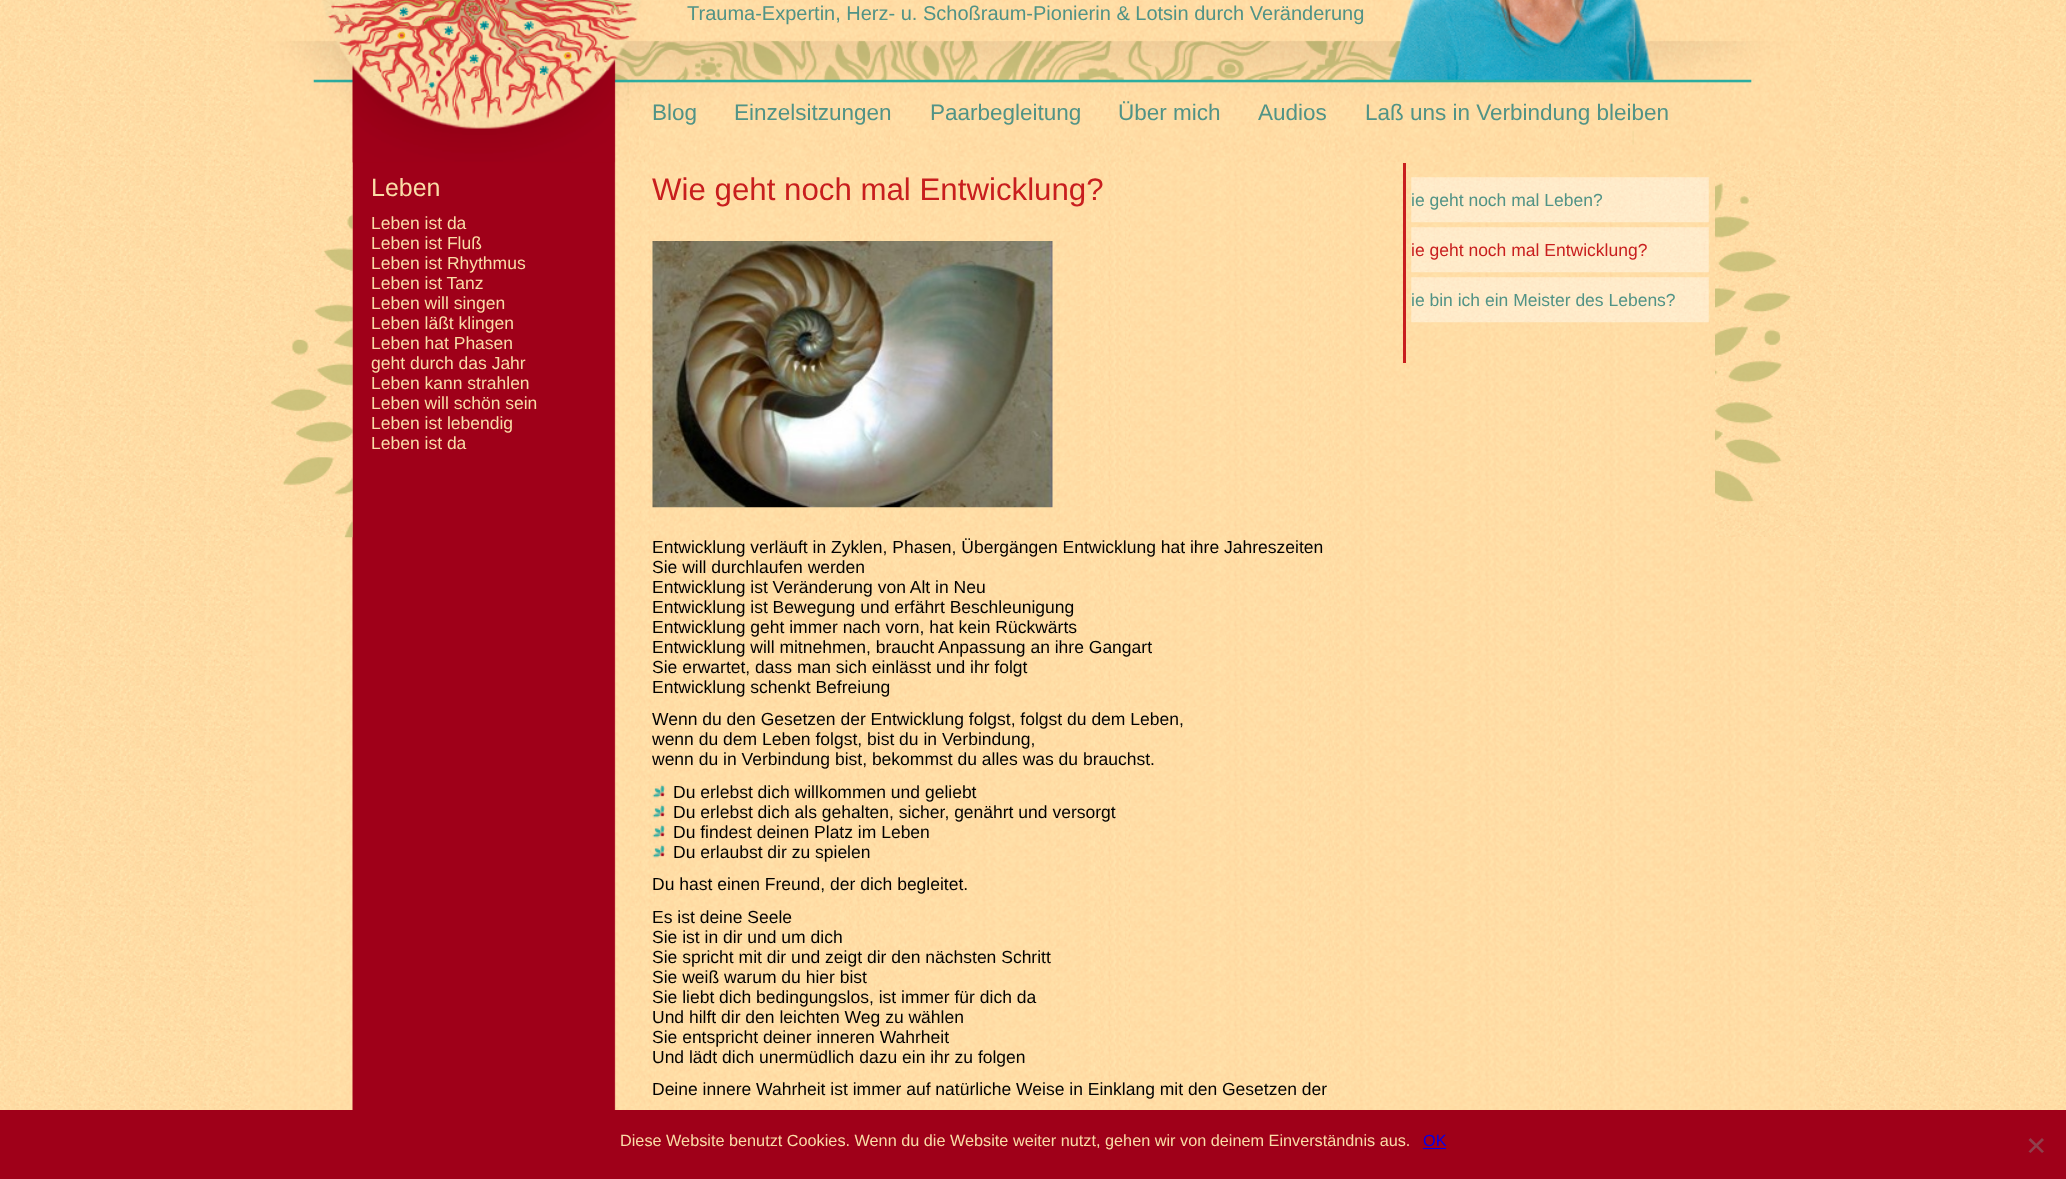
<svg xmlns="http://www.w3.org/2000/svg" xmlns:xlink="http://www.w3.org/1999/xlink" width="2066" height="1179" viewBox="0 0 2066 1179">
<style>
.cls-1{font:20px Liberation Sans;fill:#519386}
.cls-2{font:22.5px Liberation Sans;fill:#519386}
.cls-3{font:25px Liberation Sans;fill:#fadca7}
.cls-4{font:17.5px Liberation Sans;fill:#fadca7}
.cls-5{font:31.25px Liberation Sans;fill:#c81e1e}
.cls-6{font:17.5px Liberation Sans;fill:#000000}
.cls-7{font:17.5px Liberation Sans;fill:#519386}
.cls-8{font:17.5px Liberation Sans;fill:#c81e1e}
.cls-9{font:16.25px Liberation Sans;fill:#fadca7}
.cls-10{font:16.25px Liberation Sans;fill:#0000ee}
</style>
<rect width="100%" height="100%" fill="#ffffff"/>
<image xlink:href="image0.png" x="0" y="0" width="2066" height="1110"/>
<image xlink:href="image1.png" x="252" y="0" width="1563" height="1110"/>
<image xlink:href="image3.png" x="252" y="162" width="101" height="376"/>
<image xlink:href="image12.png" x="1715" y="162" width="100" height="375"/>
<image xlink:href="image2.png" x="253" y="0" width="1562" height="163"/>
<image xlink:href="image4.png" x="652" y="241" width="401" height="267"/>
<image xlink:href="image5.png" x="652" y="784" width="13" height="14"/>
<image xlink:href="image6.png" x="652" y="804" width="13" height="14"/>
<image xlink:href="image7.png" x="652" y="824" width="13" height="14"/>
<image xlink:href="image8.png" x="652" y="844" width="13" height="14"/>
<rect fill="#c81e1e" x="1403" y="163" width="3" height="200"/>
<image xlink:href="image9.png" x="1411" y="177" width="298" height="46"/>
<image xlink:href="image10.png" x="1411" y="227" width="298" height="46"/>
<image xlink:href="image11.png" x="1411" y="277" width="298" height="46"/>
<rect fill="#9f0019" x="0" y="1110" width="2066" height="69"/>
<rect fill="#0000ee" x="1423" y="1148" width="23" height="1"/>
<path fill="#90404d" d="M2042 1138L2044 1140L2030.5 1153L2028.5 1151.5Z"/>
<path fill="#90404d" d="M2028.5 1140L2030.5 1138L2044 1151.5L2042 1153Z"/>
<text class="cls-1" x="687" y="20">Trauma-Expertin, Herz- u. Schoßraum-Pionierin &amp; Lotsin durch Veränderung</text>
<text class="cls-2" x="652" y="120">Blog</text>
<text class="cls-2" x="734" y="120">Einzelsitzungen</text>
<text class="cls-2" x="930" y="120">Paarbegleitung</text>
<text class="cls-2" x="1118" y="120">Über mich</text>
<text class="cls-2" x="1258" y="120">Audios</text>
<text class="cls-2" x="1365" y="120">Laß uns in Verbindung bleiben</text>
<text class="cls-3" x="371" y="196">Leben</text>
<text class="cls-4"><tspan x="371" y="229">Leben ist da</tspan><tspan x="371" y="249">Leben ist Fluß</tspan><tspan x="371" y="269">Leben ist Rhythmus</tspan><tspan x="371" y="289">Leben ist Tanz</tspan><tspan x="371" y="309">Leben will singen</tspan><tspan x="371" y="329">Leben läßt klingen</tspan><tspan x="371" y="349">Leben hat Phasen</tspan><tspan x="371" y="369">geht durch das Jahr</tspan><tspan x="371" y="389">Leben kann strahlen</tspan><tspan x="371" y="409">Leben will schön sein</tspan><tspan x="371" y="429">Leben ist lebendig</tspan><tspan x="371" y="449">Leben ist da</tspan></text>
<text class="cls-5" x="652" y="200">Wie geht noch mal Entwicklung?</text>
<text class="cls-6"><tspan x="652" y="553">Entwicklung verläuft in Zyklen, Phasen, Übergängen Entwicklung hat ihre Jahreszeiten</tspan><tspan x="652" y="573">Sie will durchlaufen werden</tspan><tspan x="652" y="593">Entwicklung ist Veränderung von Alt in Neu</tspan><tspan x="652" y="613">Entwicklung ist Bewegung und erfährt Beschleunigung</tspan><tspan x="652" y="633">Entwicklung geht immer nach vorn, hat kein Rückwärts</tspan><tspan x="652" y="653">Entwicklung will mitnehmen, braucht Anpassung an ihre Gangart</tspan><tspan x="652" y="673">Sie erwartet, dass man sich einlässt und ihr folgt</tspan><tspan x="652" y="693">Entwicklung schenkt Befreiung</tspan><tspan x="652" y="725">Wenn du den Gesetzen der Entwicklung folgst, folgst du dem Leben,</tspan><tspan x="652" y="745">wenn du dem Leben folgst, bist du in Verbindung,</tspan><tspan x="652" y="765">wenn du in Verbindung bist, bekommst du alles was du brauchst.</tspan></text>
<text class="cls-6"><tspan x="673" y="798">Du erlebst dich willkommen und geliebt</tspan><tspan x="673" y="818">Du erlebst dich als gehalten, sicher, genährt und versorgt</tspan><tspan x="673" y="838">Du findest deinen Platz im Leben</tspan><tspan x="673" y="858">Du erlaubst dir zu spielen</tspan></text>
<text class="cls-6"><tspan x="652" y="890">Du hast einen Freund, der dich begleitet.</tspan><tspan x="652" y="923">Es ist deine Seele</tspan><tspan x="652" y="943">Sie ist in dir und um dich</tspan><tspan x="652" y="963">Sie spricht mit dir und zeigt dir den nächsten Schritt</tspan><tspan x="652" y="983">Sie weiß warum du hier bist</tspan><tspan x="652" y="1003">Sie liebt dich bedingungslos, ist immer für dich da</tspan><tspan x="652" y="1023">Und hilft dir den leichten Weg zu wählen</tspan><tspan x="652" y="1043">Sie entspricht deiner inneren Wahrheit</tspan><tspan x="652" y="1063">Und lädt dich unermüdlich dazu ein ihr zu folgen</tspan><tspan x="652" y="1095">Deine innere Wahrheit ist immer auf natürliche Weise in Einklang mit den Gesetzen der</tspan></text>
<text class="cls-7" x="1411" y="206">ie geht noch mal Leben?</text>
<text class="cls-8" x="1411" y="256">ie geht noch mal Entwicklung?</text>
<text class="cls-7" x="1411" y="306">ie bin ich ein Meister des Lebens?</text>
<text class="cls-9" x="620" y="1146">Diese Website benutzt Cookies. Wenn du die Website weiter nutzt, gehen wir von deinem Einverständnis aus.</text>
<text class="cls-10" x="1423" y="1146">OK</text>
</svg>
